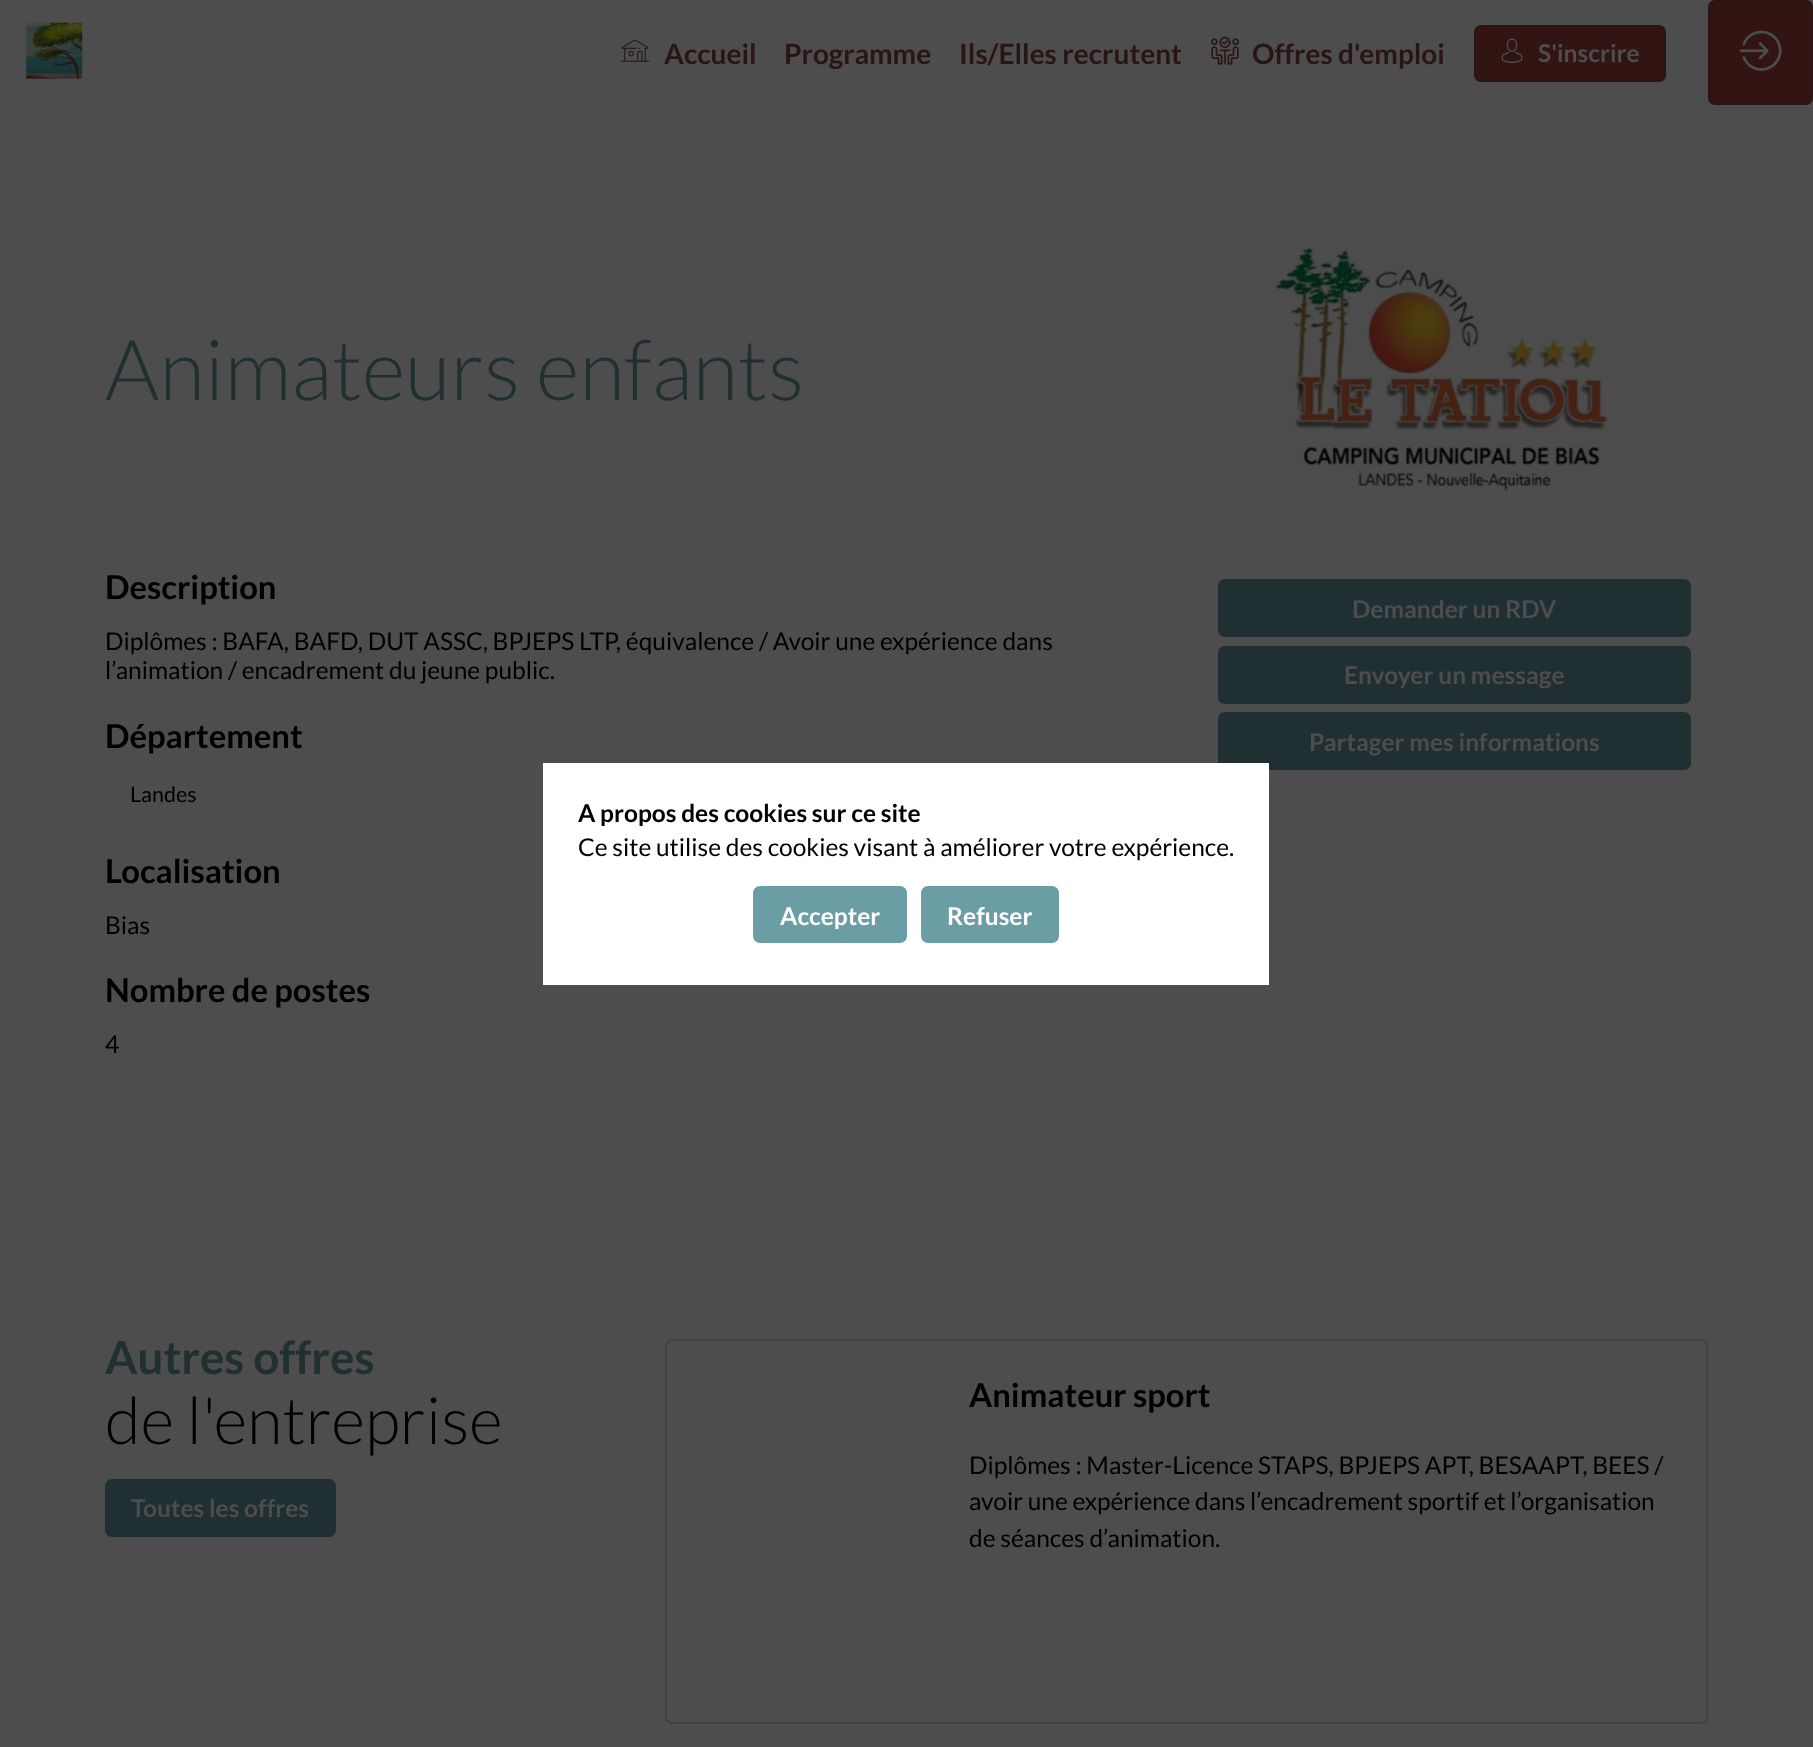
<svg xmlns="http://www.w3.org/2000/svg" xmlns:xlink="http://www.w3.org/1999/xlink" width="1813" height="1747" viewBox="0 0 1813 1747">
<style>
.cls-1{font:bold 28px Lato;fill:#291514}
.cls-2{font:bold 24.5px Lato;fill:#4d4d4d}
.cls-3{font:300 84px Lato;fill:#202f31}
.cls-4{font:bold 32.75px Lato;fill:#000000}
.cls-5{font:24.5px Lato;fill:#000000}
.cls-6{font:21.5px Lato;fill:#000000}
.cls-7{font:bold 45.75px Lato;fill:#202f31}
.cls-8{font:300 65.25px Lato;fill:#000000}
.cls-9{font:bold 24.5px Lato;fill:#000000}
.cls-10{font:bold 24.5px Lato;fill:#ffffff}
</style>
<rect width="100%" height="100%" fill="#4d4d4d"/>
<image xlink:href="image0.png" x="26" y="22" width="57" height="57"/>
<image xlink:href="image1.png" x="621" y="39" width="29" height="23"/>
<image xlink:href="image2.png" x="1211" y="36" width="28" height="29"/>
<rect fill="#321413" stroke="#291514" stroke-width="2" x="1475" y="26" width="190" height="55" rx="6"/>
<image xlink:href="image3.png" x="1501" y="38" width="22" height="25"/>
<rect fill="#321413" stroke="#291514" stroke-width="2" x="1709" y="1" width="103" height="103" rx="6"/>
<image xlink:href="image4.png" x="1739" y="30" width="43" height="41"/>
<image xlink:href="image5.png" x="1274" y="247" width="334" height="244"/>
<rect fill="#202f31" stroke="#202f31" stroke-width="2" x="1219" y="580" width="471" height="56" rx="6"/>
<rect fill="#202f31" stroke="#202f31" stroke-width="2" x="1219" y="647" width="471" height="56" rx="6"/>
<rect fill="#202f31" stroke="#202f31" stroke-width="2" x="1219" y="713" width="471" height="56" rx="6"/>
<rect fill="#202f31" stroke="#202f31" stroke-width="2" x="106" y="1480" width="229" height="56" rx="6"/>
<rect fill="none" stroke="#424242" stroke-width="2" x="666" y="1340" width="1041" height="383" rx="6"/>
<rect fill="#ffffff" x="543" y="763" width="726" height="222"/>
<rect fill="#6a9da4" stroke="#6a9da4" stroke-width="2" x="754" y="887" width="152" height="55" rx="6"/>
<rect fill="#6a9da4" stroke="#6a9da4" stroke-width="2" x="922" y="887" width="136" height="55" rx="6"/>
<text class="cls-1" x="664" y="64">Accueil</text>
<text class="cls-1" x="784" y="64">Programme</text>
<text class="cls-1" x="959" y="64">Ils/Elles recrutent</text>
<text class="cls-1" x="1252" y="64">Offres d'emploi</text>
<text class="cls-2" x="1538" y="62">S'inscrire</text>
<text class="cls-3" x="105" y="400">Animateurs enfants</text>
<text class="cls-4" x="105" y="599">Description</text>
<text class="cls-5"><tspan x="105" y="650">Diplômes : BAFA, BAFD, DUT ASSC, BPJEPS LTP, équivalence / Avoir une expérience dans</tspan><tspan x="105" y="679">l’animation / encadrement du jeune public.</tspan></text>
<text class="cls-4" x="105" y="748">Département</text>
<text class="cls-6" x="130" y="802">Landes</text>
<text class="cls-4" x="105" y="883">Localisation</text>
<text class="cls-5" x="105" y="934">Bias</text>
<text class="cls-4" x="105" y="1002">Nombre de postes</text>
<text class="cls-5" x="105" y="1053">4</text>
<text class="cls-2" x="1352" y="618">Demander un RDV</text>
<text class="cls-2" x="1344" y="684">Envoyer un message</text>
<text class="cls-2" x="1309" y="751">Partager mes informations</text>
<text class="cls-7" x="105" y="1374">Autres offres</text>
<text class="cls-8" x="105" y="1444">de l'entreprise</text>
<text class="cls-2" x="131" y="1517">Toutes les offres</text>
<text class="cls-4" x="969" y="1407">Animateur sport</text>
<text class="cls-5"><tspan x="969" y="1474">Diplômes : Master-Licence STAPS, BPJEPS APT, BESAAPT, BEES /</tspan><tspan x="969" y="1510">avoir une expérience dans l’encadrement sportif et l’organisation</tspan><tspan x="969" y="1547">de séances d’animation.</tspan></text>
<text class="cls-9" x="578" y="822">A propos des cookies sur ce site</text>
<text class="cls-5" x="578" y="856">Ce site utilise des cookies visant à améliorer votre expérience.</text>
<text class="cls-10" x="780" y="925">Accepter</text>
<text class="cls-10" x="947" y="925">Refuser</text>
</svg>
